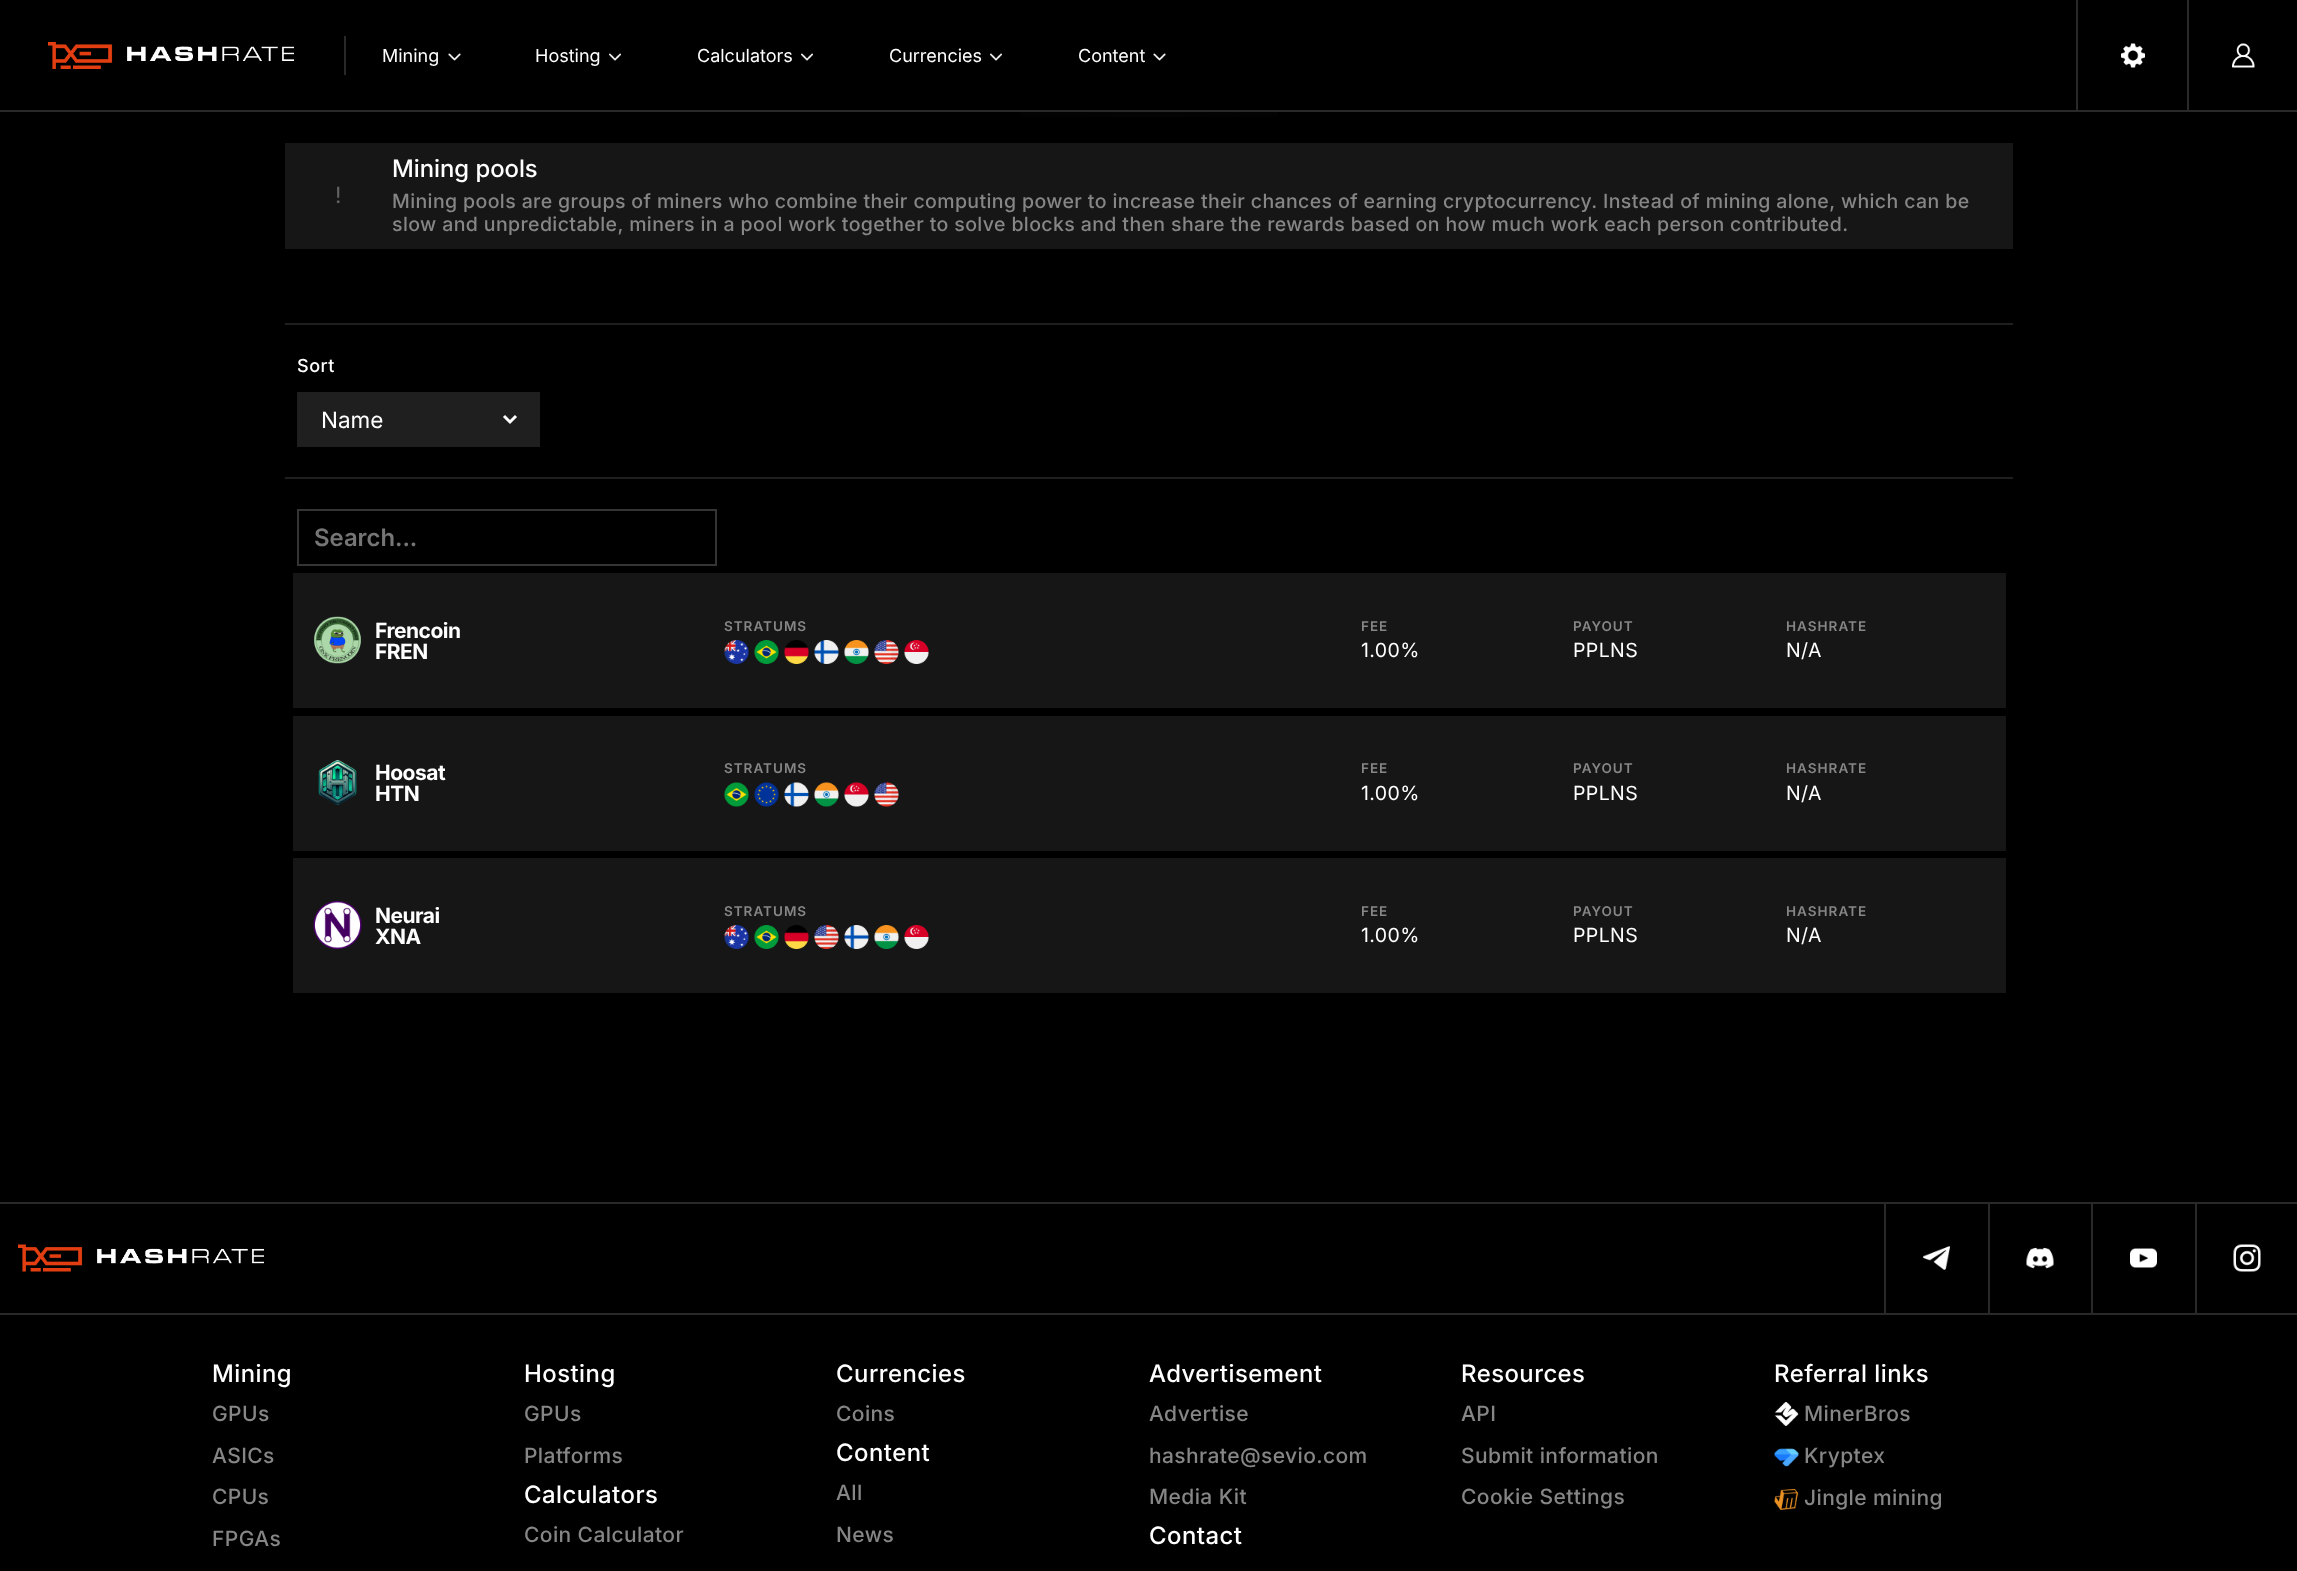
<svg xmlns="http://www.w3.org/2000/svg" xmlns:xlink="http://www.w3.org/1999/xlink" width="2297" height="1571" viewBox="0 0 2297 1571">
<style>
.cls-1{font:18px Inter;fill:#ffffff}
.cls-2{font:22.5px 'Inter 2';fill:#636363}
.cls-3{font:500 24px Inter;fill:#ffffff}
.cls-4{font:500 19.5px 'Inter 2';letter-spacing:0.39px;fill:#868686}
.cls-5{font:500 18px 'Inter 2';letter-spacing:0.5px;fill:#ffffff}
.cls-6{font:22.5px Inter;fill:#ffffff}
.cls-7{font:600 24px Inter;fill:#757575}
.cls-8{font:bold 21px Inter;letter-spacing:-0.5px;fill:#ffffff}
.cls-9{font:600 13.5px 'Inter 2';letter-spacing:1px;fill:#868686}
.cls-10{font:19.5px Inter;letter-spacing:0.39px;fill:#ffffff}
.cls-11{font:500 24px Inter;letter-spacing:0.5px;fill:#ffffff}
.cls-12{font:500 21px 'Inter 2';letter-spacing:0.4px;fill:#868686}
</style>
<defs>
<radialGradient id="g1" gradientUnits="userSpaceOnUse" cx="0" cy="0" r="1" gradientTransform="matrix(1226 0 0 588 1149 -295)"><stop offset="0" stop-color="#303030"/><stop offset="0.74" stop-color="#000000"/></radialGradient>
</defs>
<rect width="100%" height="100%" fill="#000000"/>
<rect fill="#292929" x="0" y="110" width="2297" height="2"/>
<rect fill="#292929" x="344" y="36" width="2" height="39"/>
<image xlink:href="image0.png" x="48" y="42" width="246" height="27"/>
<image xlink:href="image1.png" x="448" y="53" width="13" height="8"/>
<image xlink:href="image2.png" x="609" y="53" width="12" height="8"/>
<image xlink:href="image2.png" x="801" y="53" width="12" height="8"/>
<image xlink:href="image2.png" x="990" y="53" width="12" height="8"/>
<image xlink:href="image1.png" x="1153" y="53" width="13" height="8"/>
<rect fill="#292929" x="2076" y="0" width="2" height="111"/>
<image xlink:href="image3.png" x="2121" y="43" width="24" height="25"/>
<rect fill="#292929" x="2187" y="0" width="2" height="111"/>
<image xlink:href="image4.png" x="2232" y="43" width="23" height="25"/>
<rect fill="url(#g1)" x="1020" y="112" width="258" height="5"/>
<rect fill="#161616" x="285" y="143" width="1728" height="106"/>
<rect fill="#1f1f1f" x="285" y="323" width="1728" height="2"/>
<rect fill="#1f1f1f" x="297" y="392" width="243" height="55"/>
<path fill="none" stroke="#ffffff" stroke-width="3" d="M504 416L510 422L516 416"/>
<rect fill="#1f1f1f" x="285" y="477" width="1728" height="2"/>
<rect fill="none" stroke="#353535" stroke-width="2" x="298" y="510" width="418" height="55"/>
<rect fill="#161616" x="293" y="573" width="1713" height="135"/>
<image xlink:href="image5.png" x="313" y="616" width="48" height="48"/>
<image xlink:href="image6.png" x="724" y="640" width="25" height="24"/>
<image xlink:href="image7.png" x="754" y="640" width="25" height="24"/>
<image xlink:href="image8.png" x="784" y="640" width="25" height="24"/>
<image xlink:href="image9.png" x="814" y="640" width="25" height="24"/>
<image xlink:href="image10.png" x="844" y="640" width="25" height="24"/>
<image xlink:href="image11.png" x="874" y="640" width="25" height="24"/>
<image xlink:href="image12.png" x="904" y="640" width="25" height="24"/>
<rect fill="#161616" x="293" y="716" width="1713" height="135"/>
<image xlink:href="image13.png" x="318" y="760" width="39" height="45"/>
<image xlink:href="image14.png" x="724" y="782" width="25" height="25"/>
<image xlink:href="image15.png" x="754" y="782" width="25" height="25"/>
<image xlink:href="image16.png" x="784" y="782" width="25" height="25"/>
<image xlink:href="image17.png" x="814" y="782" width="25" height="25"/>
<image xlink:href="image18.png" x="844" y="782" width="25" height="25"/>
<image xlink:href="image19.png" x="874" y="782" width="25" height="25"/>
<rect fill="#161616" x="293" y="858" width="1713" height="135"/>
<image xlink:href="image20.png" x="313" y="901" width="49" height="48"/>
<image xlink:href="image6.png" x="724" y="925" width="25" height="24"/>
<image xlink:href="image7.png" x="754" y="925" width="25" height="24"/>
<image xlink:href="image8.png" x="784" y="925" width="25" height="24"/>
<image xlink:href="image11.png" x="814" y="925" width="25" height="24"/>
<image xlink:href="image9.png" x="844" y="925" width="25" height="24"/>
<image xlink:href="image10.png" x="874" y="925" width="25" height="24"/>
<image xlink:href="image12.png" x="904" y="925" width="25" height="24"/>
<rect fill="#292929" x="0" y="1202" width="2297" height="2"/>
<rect fill="#292929" x="0" y="1313" width="2297" height="2"/>
<image xlink:href="image21.png" x="18" y="1244" width="246" height="28"/>
<rect fill="#292929" x="1884" y="1203" width="2" height="111"/>
<image xlink:href="image22.png" x="1923" y="1246" width="27" height="24"/>
<rect fill="#292929" x="1988" y="1203" width="2" height="111"/>
<image xlink:href="image23.png" x="2026" y="1247" width="28" height="22"/>
<rect fill="#292929" x="2091" y="1203" width="2" height="111"/>
<image xlink:href="image24.png" x="2130" y="1248" width="27" height="20"/>
<rect fill="#292929" x="2195" y="1203" width="2" height="111"/>
<image xlink:href="image25.png" x="2233" y="1244" width="28" height="28"/>
<image xlink:href="image26.png" x="1774" y="1402" width="25" height="24"/>
<image xlink:href="image27.png" x="1774" y="1448" width="25" height="19"/>
<image xlink:href="image28.png" x="1774" y="1489" width="25" height="21"/>
<text class="cls-1" x="382" y="62">Mining</text>
<text class="cls-1" x="535" y="62">Hosting</text>
<text class="cls-1" x="697" y="62">Calculators</text>
<text class="cls-1" x="889" y="62">Currencies</text>
<text class="cls-1" x="1078" y="62">Content</text>
<text class="cls-2" x="335" y="203">!</text>
<text class="cls-3" x="392" y="177">Mining pools</text>
<text class="cls-4"><tspan x="392" y="208">Mining pools are groups of miners who combine their computing power to increase their chances of earning cryptocurrency. Instead of mining alone, which can be</tspan><tspan x="392" y="231">slow and unpredictable, miners in a pool work together to solve blocks and then share the rewards based on how much work each person contributed.</tspan></text>
<text class="cls-5" x="297" y="372">Sort</text>
<text class="cls-6" x="321" y="428">Name</text>
<text class="cls-7" x="314" y="546">Search...</text>
<text class="cls-8"><tspan x="375" y="638">Frencoin</tspan><tspan x="375" y="659">FREN</tspan></text>
<text class="cls-9" x="724" y="631">STRATUMS</text>
<text class="cls-9" x="1361" y="631">FEE</text>
<text class="cls-10" x="1361" y="657">1.00%</text>
<text class="cls-9" x="1573" y="631">PAYOUT</text>
<text class="cls-10" x="1573" y="657">PPLNS</text>
<text class="cls-9" x="1786" y="631">HASHRATE</text>
<text class="cls-10" x="1786" y="657">N/A</text>
<text class="cls-8"><tspan x="375" y="780">Hoosat</tspan><tspan x="375" y="801">HTN</tspan></text>
<text class="cls-9" x="724" y="773">STRATUMS</text>
<text class="cls-9" x="1361" y="773">FEE</text>
<text class="cls-10" x="1361" y="800">1.00%</text>
<text class="cls-9" x="1573" y="773">PAYOUT</text>
<text class="cls-10" x="1573" y="800">PPLNS</text>
<text class="cls-9" x="1786" y="773">HASHRATE</text>
<text class="cls-10" x="1786" y="800">N/A</text>
<text class="cls-8"><tspan x="375" y="923">Neurai</tspan><tspan x="375" y="944">XNA</tspan></text>
<text class="cls-9" x="724" y="916">STRATUMS</text>
<text class="cls-9" x="1361" y="916">FEE</text>
<text class="cls-10" x="1361" y="942">1.00%</text>
<text class="cls-9" x="1573" y="916">PAYOUT</text>
<text class="cls-10" x="1573" y="942">PPLNS</text>
<text class="cls-9" x="1786" y="916">HASHRATE</text>
<text class="cls-10" x="1786" y="942">N/A</text>
<text class="cls-11" x="212" y="1382">Mining</text>
<text class="cls-12" x="212" y="1421">GPUs</text>
<text class="cls-12"><tspan x="212" y="1463">ASICs</tspan><tspan x="212" y="1504">CPUs</tspan></text>
<text class="cls-12" x="212" y="1546">FPGAs</text>
<text class="cls-11" x="524" y="1382">Hosting</text>
<text class="cls-12" x="524" y="1421">GPUs</text>
<text class="cls-12" x="524" y="1463">Platforms</text>
<text class="cls-11" x="524" y="1503">Calculators</text>
<text class="cls-12" x="524" y="1542">Coin Calculator</text>
<text class="cls-11" x="836" y="1382">Currencies</text>
<text class="cls-12" x="836" y="1421">Coins</text>
<text class="cls-11" x="836" y="1461">Content</text>
<text class="cls-12" x="836" y="1500">All</text>
<text class="cls-12" x="836" y="1542">News</text>
<text class="cls-11" x="1149" y="1382">Advertisement</text>
<text class="cls-12" x="1149" y="1421">Advertise</text>
<text class="cls-12"><tspan x="1149" y="1463">hashrate@sevio.com</tspan><tspan x="1149" y="1504">Media Kit</tspan></text>
<text class="cls-11" x="1149" y="1544">Contact</text>
<text class="cls-11" x="1461" y="1382">Resources</text>
<text class="cls-12" x="1461" y="1421">API</text>
<text class="cls-12"><tspan x="1461" y="1463">Submit information</tspan><tspan x="1461" y="1504">Cookie Settings</tspan></text>
<text class="cls-11" x="1774" y="1382">Referral links</text>
<text class="cls-12" x="1804" y="1421">MinerBros</text>
<text class="cls-12" x="1804" y="1463">Kryptex</text>
<text class="cls-12" x="1804" y="1505">Jingle mining</text>
</svg>
